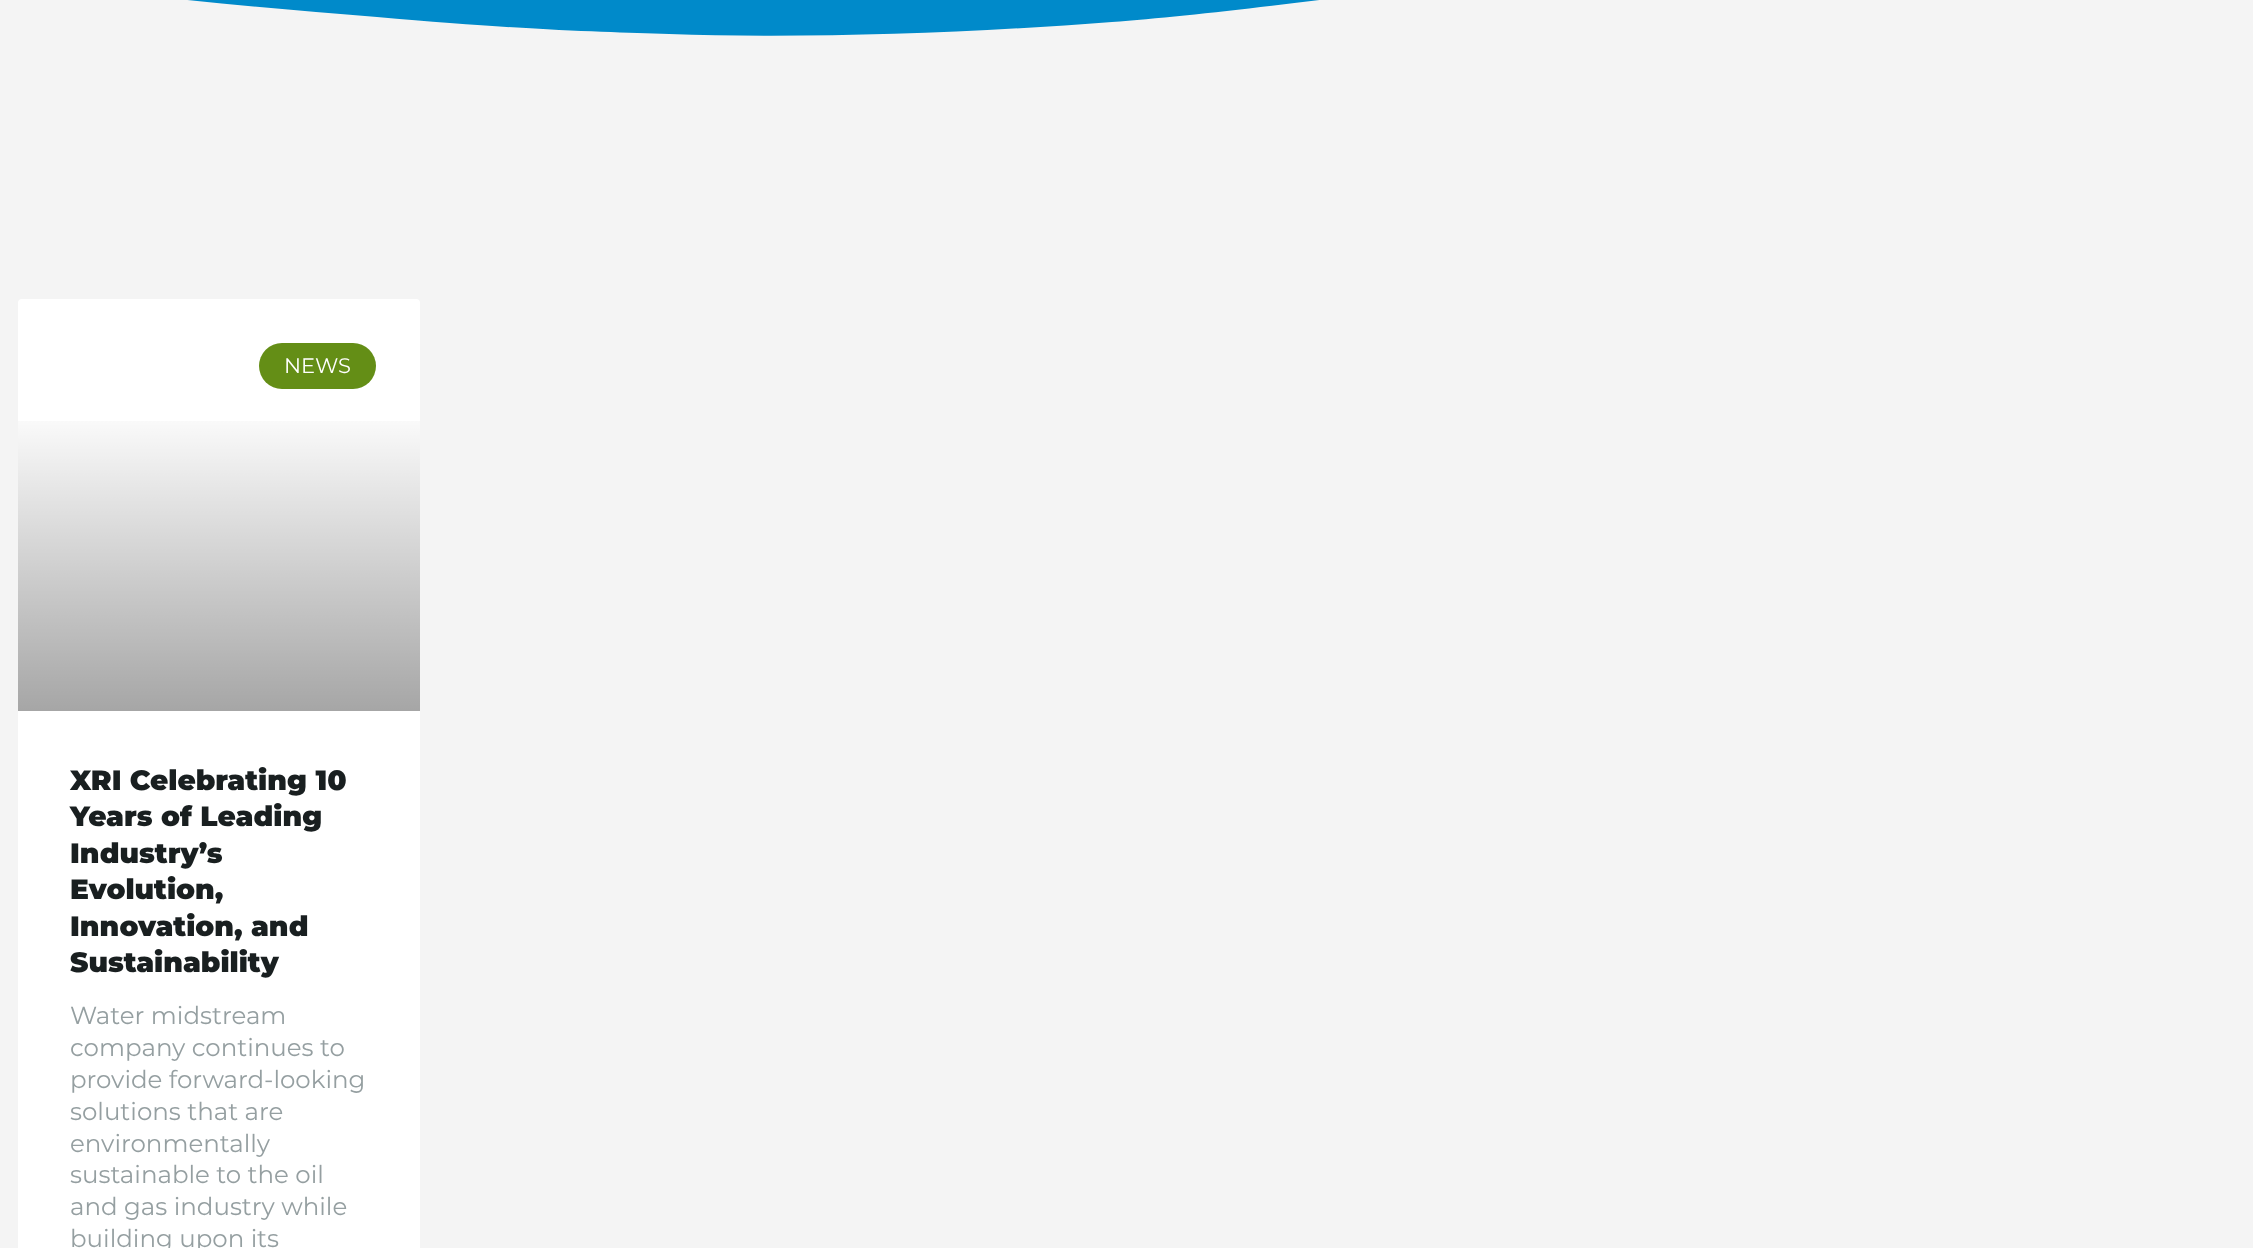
<svg xmlns="http://www.w3.org/2000/svg" xmlns:xlink="http://www.w3.org/1999/xlink" width="2253" height="1248" viewBox="0 0 2253 1248">
<style>
.cls-1{font:21px Montserrat;fill:#ffffff}
.cls-2{font:900 28px Montserrat;fill:#191f20}
.cls-3{font:24.5px Montserrat;fill:#959fa1}
</style>
<defs>
<linearGradient id="g1" gradientUnits="userSpaceOnUse" x1="219" y1="711" x2="219" y2="299"><stop offset="0" stop-color="#000000" stop-opacity="0.35"/><stop offset="0.75" stop-color="#000000" stop-opacity="0"/></linearGradient>
</defs>
<rect width="100%" height="100%" fill="#f4f4f4"/>
<rect fill="#008aca" x="187" y="0" width="1132" height="36"/>
<path fill="#f4f4f4" d="M669 34C802 39 971 33 1112 22C1250 12 1527-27 1701-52C2145-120 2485-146 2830-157C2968-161 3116-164 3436-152C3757-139 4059-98 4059-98V47H-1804V-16C-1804-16-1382-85-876-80C-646-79-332-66-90-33C34-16 216 5 377 17C537 31 609 32 669 34Z"/>
<rect fill="#ffffff" x="18" y="299" width="402" height="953" rx="4"/>
<rect fill="#648e16" x="259" y="343" width="117" height="46" rx="23"/>
<rect fill="url(#g1)" x="18" y="421" width="402" height="290"/>
<text class="cls-1" x="284" y="373">NEWS</text>
<text class="cls-2"><tspan x="70" y="790">XRI Celebrating 10</tspan><tspan x="70" y="826">Years of Leading</tspan><tspan x="70" y="863">Industry’s</tspan><tspan x="70" y="899">Evolution,</tspan><tspan x="70" y="936">Innovation, and</tspan><tspan x="70" y="972">Sustainability</tspan></text>
<text class="cls-3"><tspan x="70" y="1024">Water midstream</tspan><tspan x="70" y="1056">company continues to</tspan><tspan x="70" y="1088">provide forward-looking</tspan><tspan x="70" y="1120">solutions that are</tspan><tspan x="70" y="1152">environmentally</tspan><tspan x="70" y="1183">sustainable to the oil</tspan><tspan x="70" y="1215">and gas industry while</tspan><tspan x="70" y="1247">building upon its</tspan></text>
</svg>
